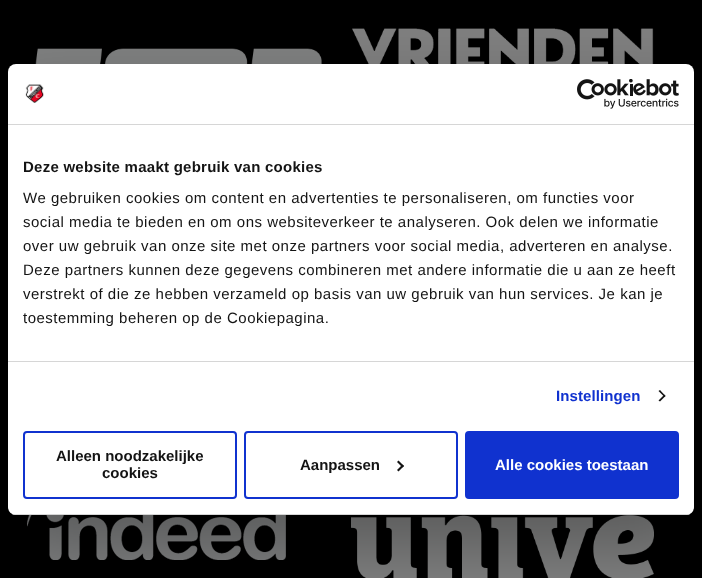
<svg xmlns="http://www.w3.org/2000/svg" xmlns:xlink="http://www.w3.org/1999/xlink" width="702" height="578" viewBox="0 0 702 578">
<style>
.cls-1{font:bold 15px Liberation Sans;letter-spacing:0.25px;fill:#141414}
.cls-2{font:15px Liberation Sans;letter-spacing:0.5px;fill:#141414}
.cls-3{font:bold 15px Liberation Sans;letter-spacing:0.1px;fill:#1032cf}
.cls-4{font:bold 15px Liberation Sans;fill:#141414}
.cls-5{font:bold 15px Liberation Sans;fill:#ffffff}
</style>
<defs>
<clipPath id="clip1"><rect x="8" y="64" width="686" height="451" rx="8"/></clipPath>
</defs>
<rect width="100%" height="100%" fill="#000000"/>
<image xlink:href="image0.png" x="35" y="48" width="287" height="16"/>
<image xlink:href="image1.png" x="352" y="28" width="302" height="36"/>
<image xlink:href="image2.png" x="27" y="515" width="259" height="45"/>
<image xlink:href="image3.png" x="351" y="515" width="303" height="63"/>
<rect fill="#000000" fill-opacity="0.3" filter="blur(34px)" x="8" y="96" width="686" height="451" rx="8"/>
<rect fill="#ffffff" x="8" y="64" width="686" height="451" rx="8"/>
<rect fill="#d6d6d6" x="8" y="124" width="686" height="1"/>
<image xlink:href="image4.png" x="25" y="84" width="19" height="19"/>
<image xlink:href="image5.png" x="577" y="79" width="102" height="30"/>
<rect fill="#d6d6d6" x="8" y="361" width="686" height="1"/>
<path fill="#141414" d="M660 390L665.5 396L664.5 397L658.5 391Z"/>
<path fill="#141414" d="M664.5 394.5L665.5 396L660 401.5L658.5 400.5Z"/>
<g clip-path="url(#clip1)">
<rect fill="#d6d6d6" x="8" y="514" width="686" height="1"/>
</g>
<rect fill="none" stroke="#1032cf" stroke-width="2" x="24" y="432" width="212" height="66" rx="3"/>
<rect fill="none" stroke="#1032cf" stroke-width="2" x="245" y="432" width="212" height="66" rx="3"/>
<path fill="#141414" d="M398.5 460.5L404 466L402.5 467.5L397 462Z"/>
<path fill="#141414" d="M402.5 464.5L404 466L398.5 471.5L397 470Z"/>
<rect fill="#1032cf" stroke="#1032cf" stroke-width="2" x="466" y="432" width="212" height="66" rx="3"/>
<text class="cls-1" x="23" y="172">Deze website maakt gebruik van cookies</text>
<text class="cls-2"><tspan x="23" y="203">We gebruiken cookies om content en advertenties te personaliseren, om functies voor</tspan><tspan x="23" y="227">social media te bieden en om ons websiteverkeer te analyseren. Ook delen we informatie</tspan><tspan x="23" y="251">over uw gebruik van onze site met onze partners voor social media, adverteren en analyse.</tspan><tspan x="23" y="275">Deze partners kunnen deze gegevens combineren met andere informatie die u aan ze heeft</tspan><tspan x="23" y="299">verstrekt of die ze hebben verzameld op basis van uw gebruik van hun services. Je kan je</tspan><tspan x="23" y="323">toestemming beheren op de Cookiepagina.</tspan></text>
<text class="cls-3" x="556" y="401">Instellingen</text>
<text class="cls-4" x="56" y="461">Alleen noodzakelijke</text>
<text class="cls-4" x="102" y="478">cookies</text>
<text class="cls-4" x="300" y="470">Aanpassen</text>
<text class="cls-5" x="495" y="470">Alle cookies toestaan</text>
</svg>
